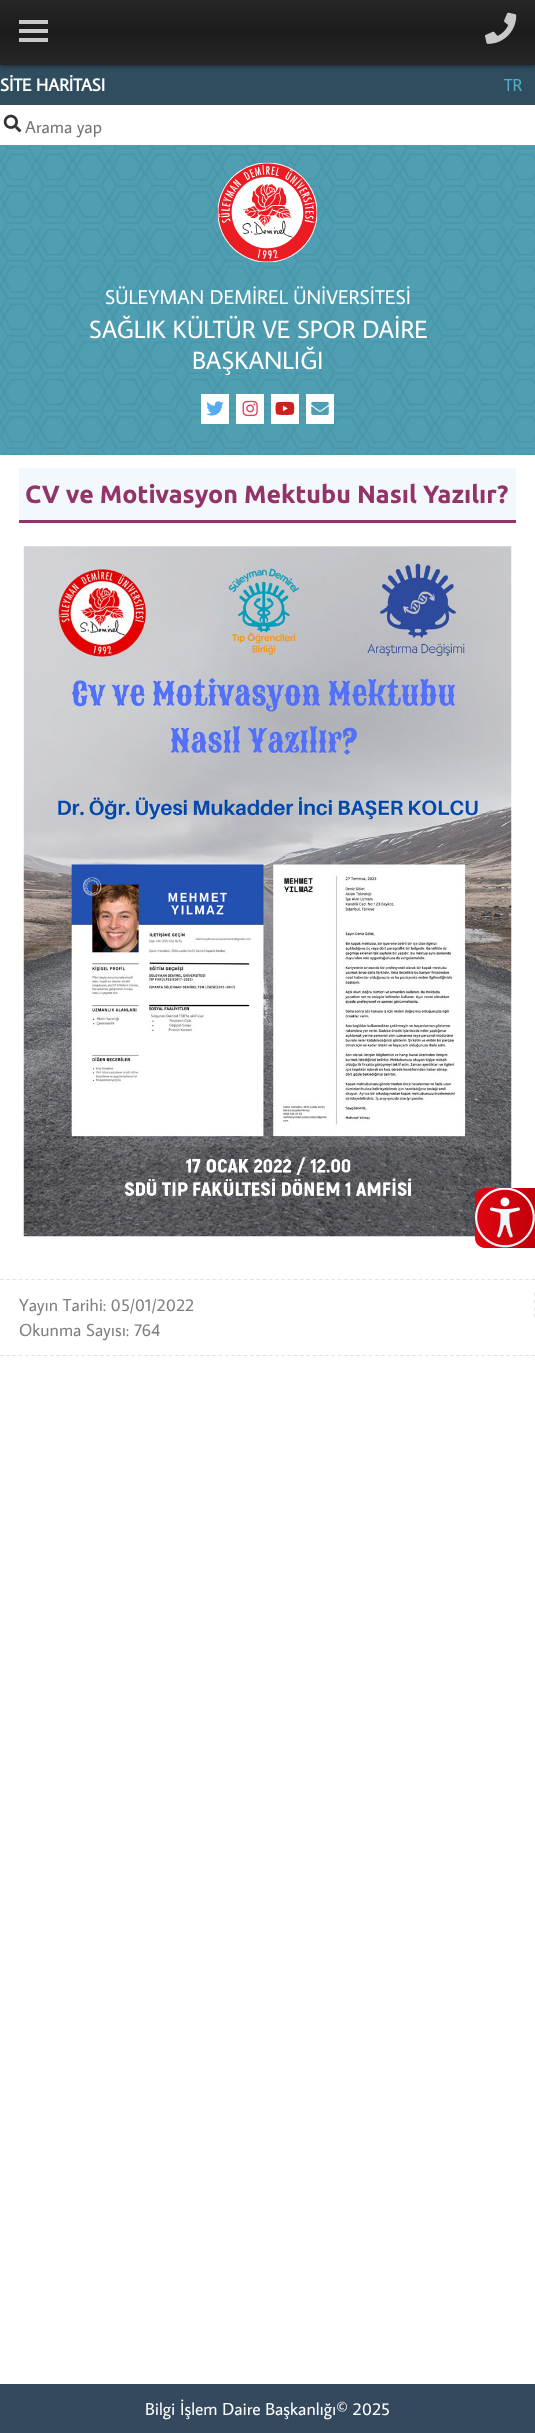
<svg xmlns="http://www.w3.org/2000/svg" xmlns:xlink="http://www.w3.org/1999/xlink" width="535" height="2433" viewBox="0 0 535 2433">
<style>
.cls-1{font:bold 17.5px Average Sans;fill:#ffffff}
.cls-2{font:17.5px Average Sans;fill:#52aec9}
.cls-3{font:17.5px Average Sans;fill:#757575}
.cls-4{font:20px Average Sans;fill:#ffffff}
.cls-5{font:25px Average Sans;fill:#ffffff}
.cls-6{font:bold 25px Ubuntu;fill:#933469}
.cls-7{font:17.5px Average Sans;fill:#808080}
.cls-8{font:17.5px Average Sans;fill:#ffffff}
</style>
<defs>
<linearGradient id="g1" gradientUnits="userSpaceOnUse" x1="268" y1="0" x2="268" y2="65"><stop offset="0" stop-color="#262626"/><stop offset="0.5" stop-color="#1c1c1c"/><stop offset="1" stop-color="#262626"/></linearGradient>
<linearGradient id="g2" gradientUnits="userSpaceOnUse" x1="473" y1="1217" x2="535" y2="1218"><stop offset="0" stop-color="#e10613"/><stop offset="0.99" stop-color="#c2000a"/></linearGradient>
</defs>
<rect width="100%" height="100%" fill="#ffffff"/>
<rect fill="#4f9eb2" x="0" y="145" width="535" height="310"/>
<image xlink:href="image0.png" x="0" y="145" width="535" height="310"/>
<rect fill="#2f4d5f" x="0" y="65" width="535" height="40"/>
<rect fill="#000000" fill-opacity="0.5" filter="blur(2.5px)" x="0" y="1" width="535" height="65"/>
<rect fill="url(#g1)" x="0" y="0" width="535" height="65"/>
<rect fill="#c9c9c9" x="19" y="29" width="29" height="4"/>
<rect fill="#c9c9c9" x="19" y="20" width="29" height="4"/>
<rect fill="#c9c9c9" x="19" y="38" width="29" height="4"/>
<image xlink:href="image1.png" x="485" y="12" width="32" height="32"/>
<image xlink:href="image2.png" x="3" y="114" width="19" height="19"/>
<image xlink:href="image3.png" x="217" y="162" width="101" height="101"/>
<rect fill="#ffffff" x="201" y="394" width="28" height="30"/>
<image xlink:href="image4.png" x="206" y="401" width="18" height="15"/>
<rect fill="#ffffff" x="236" y="394" width="28" height="30"/>
<image xlink:href="image5.png" x="242" y="400" width="16" height="17"/>
<rect fill="#ffffff" x="271" y="394" width="28" height="30"/>
<image xlink:href="image6.png" x="275" y="401" width="20" height="14"/>
<rect fill="#ffffff" x="306" y="394" width="28" height="30"/>
<image xlink:href="image7.png" x="311" y="401" width="18" height="14"/>
<rect fill="#f3f8fd" x="19" y="468" width="497" height="52"/>
<rect fill="#933469" x="19" y="520" width="497" height="3"/>
<image xlink:href="image8.png" x="23" y="546" width="489" height="691"/>
<path fill="none" stroke="#e4e4e4" stroke-width="1.2" stroke-dasharray="3.75 2.5" d="M0 1279.5H535"/>
<path fill="none" stroke="#e4e4e4" stroke-width="1.2" stroke-dasharray="3.75 2.5" d="M0 1355.5H535"/>
<path fill="none" stroke="#e4e4e4" stroke-width="1.2" stroke-dasharray="3.75 3.34" d="M534.5 1292.5V1317.5"/>
<path fill="url(#g2)" d="M485 1188H535V1248H485C479.5 1248 475 1243.5 475 1238V1198C475 1192.5 479.5 1188 485 1188Z"/>
<image xlink:href="image9.png" x="475" y="1188" width="60" height="60"/>
<rect fill="#34495e" x="0" y="2384" width="535" height="49"/>
<text class="cls-1" x="0" y="91">SİTE HARİTASI</text>
<text class="cls-2" x="504" y="91">TR</text>
<text class="cls-3" x="25" y="133">Arama yap</text>
<text class="cls-4" x="105" y="304">SÜLEYMAN DEMİREL ÜNİVERSİTESİ</text>
<text class="cls-5" x="89" y="338">SAĞLIK KÜLTÜR VE SPOR DAİRE</text>
<text class="cls-5" x="192" y="369">BAŞKANLIĞI</text>
<text class="cls-6" x="25" y="503">CV ve Motivasyon Mektubu Nasıl Yazılır?</text>
<text class="cls-7"><tspan x="19" y="1311">Yayın Tarihi: 05/01/2022</tspan><tspan x="19" y="1336">Okunma Sayısı: 764</tspan></text>
<text class="cls-8" x="145" y="2415">Bilgi İşlem Daire Başkanlığı© 2025</text>
</svg>
